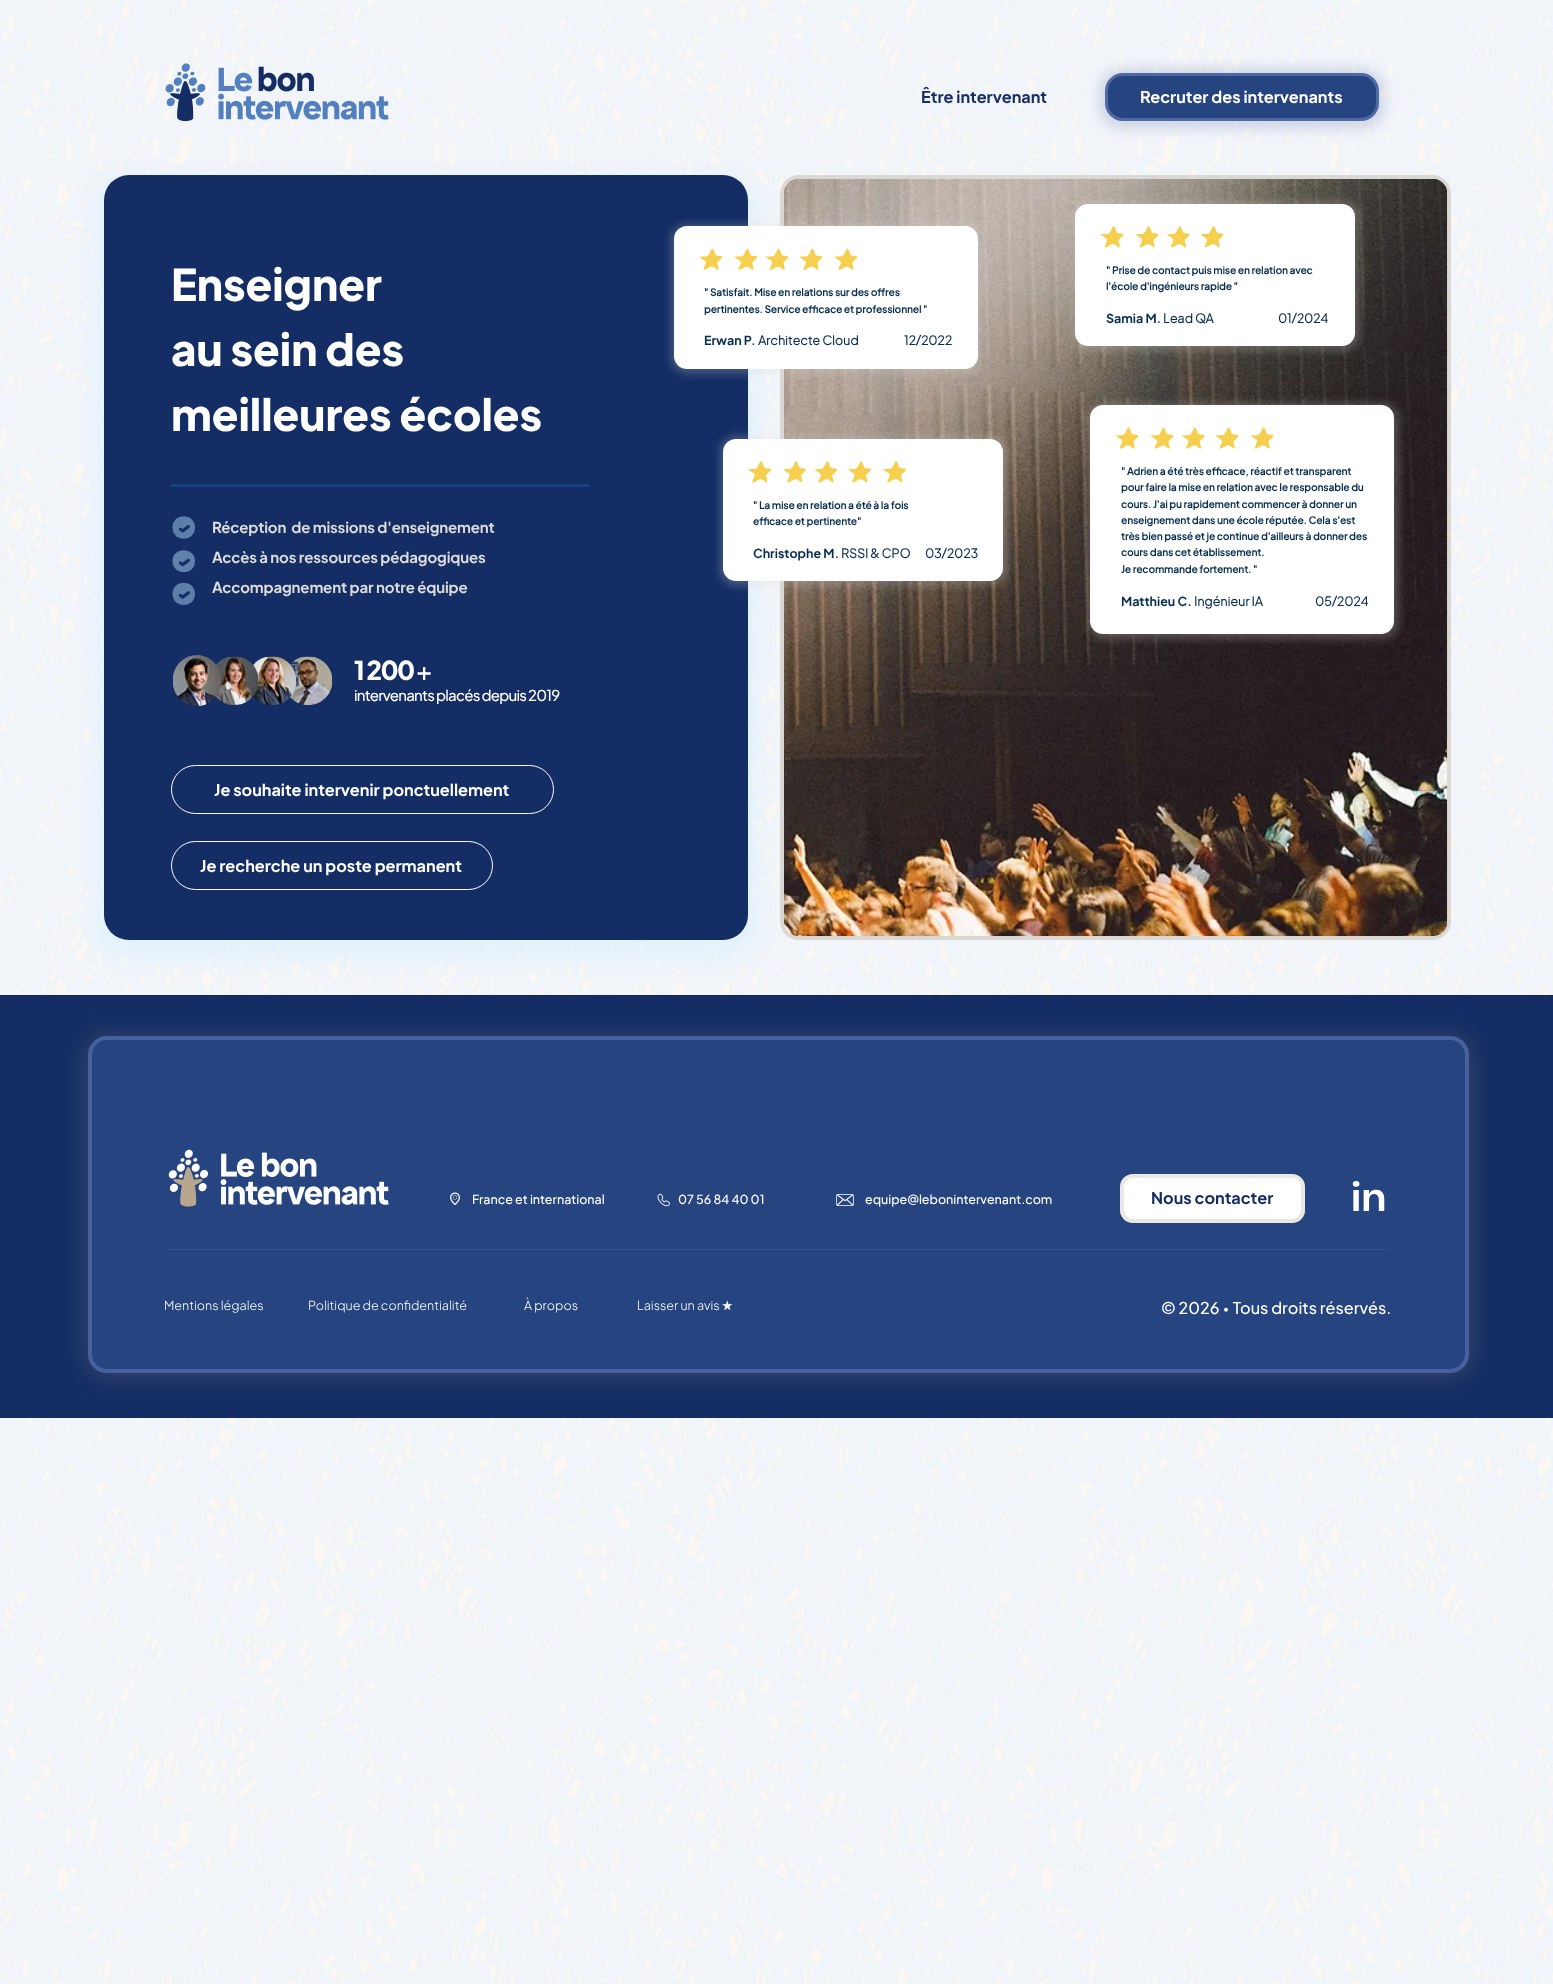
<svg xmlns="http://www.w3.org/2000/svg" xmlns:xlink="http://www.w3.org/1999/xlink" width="1553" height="1984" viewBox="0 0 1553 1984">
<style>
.cls-1{font:bold 16.25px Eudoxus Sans;fill:#142d64}
.cls-2{font:bold 16.25px Eudoxus Sans;fill:#ffffff}
.cls-3{font:800 43.75px Eudoxus Sans;fill:#ffffff}
.cls-4{font:bold 15px Eudoxus Sans;letter-spacing:-0.15px;fill:#dbdbdb}
.cls-5{font:800 26px Eudoxus Sans;letter-spacing:-1.5px;fill:#ffffff}
.cls-6{font:500 26px Eudoxus Sans;letter-spacing:-1.5px;fill:#ffffff}
.cls-7{font:500 15px Eudoxus Sans;letter-spacing:-0.75px;fill:#ffffff}
.cls-8{font:bold 10px 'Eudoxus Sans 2';fill:#082e50}
.cls-9{font:bold 12.5px Eudoxus Sans;fill:#082e50}
.cls-10{font:bold 12.5px 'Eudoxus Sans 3';fill:#082e50}
.cls-11{font:500 12.5px Eudoxus Sans;fill:#ffffff}
.cls-12{font:600 38px Poppins;fill:#ffffff}
.cls-13{font:300 12.5px Eudoxus Sans;fill:#ffffff}
.cls-14{font:500 16.25px Eudoxus Sans;fill:#ffffff}
</style>
<rect width="100%" height="100%" fill="#ffffff"/>
<image xlink:href="image0.png" x="0" y="0" width="1553" height="1984"/>
<image xlink:href="image1.png" x="165" y="63" width="224" height="59"/>
<rect fill="#4f69a4" fill-opacity="0.21" filter="blur(6px)" x="1099" y="68" width="286" height="61" rx="24"/>
<rect fill="#264580" stroke="#4f69a4" stroke-width="3" x="1106.5" y="74.5" width="271" height="45" rx="16.5"/>
<rect fill="#e1f1fc" fill-opacity="0.81" filter="blur(8px)" x="93" y="174" width="666" height="787" rx="36"/>
<rect fill="#142d64" x="104" y="175" width="644" height="765" rx="25"/>
<rect fill="#16427d" x="171" y="484" width="418" height="3"/>
<path fill="#5d7dab" d="M195 527.5C195 542.5 172.5 542.5 172.5 527.5C172.5 512.5 195 512.5 195 527.5Z"/>
<image xlink:href="image2.png" x="178" y="525" width="12" height="8"/>
<path fill="#6080ae" d="M195 561C195 576 172.5 576 172.5 561C172.5 546.5 195 546.5 195 561Z"/>
<image xlink:href="image3.png" x="178" y="558" width="12" height="9"/>
<path fill="#5d7dab" d="M195 594C195 608.5 172.5 608.5 172.5 594C172.5 579 195 579 195 594Z"/>
<image xlink:href="image4.png" x="178" y="591" width="12" height="8"/>
<image xlink:href="image8.png" x="289" y="656" width="44" height="49"/>
<image xlink:href="image7.png" x="253" y="656" width="43" height="49"/>
<image xlink:href="image6.png" x="215" y="656" width="44" height="49"/>
<image xlink:href="image5.png" x="173" y="655" width="48" height="51"/>
<rect fill="none" stroke="#ffffff" x="171.5" y="765.5" width="382" height="48" rx="24"/>
<rect fill="none" stroke="#ffffff" x="171.5" y="841.5" width="321" height="48" rx="24"/>
<rect fill="#bdb2a1" fill-opacity="0.24" x="780" y="175" width="671" height="765" rx="19"/>
<rect fill="none" stroke="#bdb2a1" stroke-opacity="0.24" stroke-width="4" x="782" y="177" width="667" height="761" rx="17"/>
<image xlink:href="image9.png" x="784" y="179" width="664" height="757"/>
<rect fill="#dbdbdb" fill-opacity="0.25" filter="blur(4.5px)" x="671" y="224" width="312" height="150" rx="16"/>
<rect fill="#ffffff" x="674" y="226" width="304" height="143" rx="13"/>
<image xlink:href="image10.png" x="699" y="248" width="23" height="22"/>
<image xlink:href="image10.png" x="734" y="248" width="23" height="22"/>
<image xlink:href="image11.png" x="765" y="248" width="24" height="22"/>
<image xlink:href="image10.png" x="799" y="248" width="23" height="22"/>
<image xlink:href="image10.png" x="834" y="248" width="23" height="22"/>
<rect fill="#dbdbdb" fill-opacity="0.25" filter="blur(4.5px)" x="1073" y="201" width="287" height="150" rx="16"/>
<rect fill="#ffffff" x="1075" y="204" width="280" height="142" rx="13"/>
<image xlink:href="image12.png" x="1100" y="226" width="24" height="22"/>
<image xlink:href="image12.png" x="1135" y="226" width="24" height="22"/>
<image xlink:href="image13.png" x="1166" y="226" width="24" height="22"/>
<image xlink:href="image12.png" x="1200" y="226" width="24" height="22"/>
<rect fill="#dbdbdb" fill-opacity="0.25" filter="blur(4.5px)" x="720" y="436" width="288" height="150" rx="16"/>
<rect fill="#ffffff" x="723" y="439" width="280" height="142" rx="13"/>
<image xlink:href="image14.png" x="748" y="461" width="23" height="22"/>
<image xlink:href="image14.png" x="783" y="461" width="23" height="22"/>
<image xlink:href="image15.png" x="814" y="461" width="23" height="22"/>
<image xlink:href="image14.png" x="848" y="461" width="23" height="22"/>
<image xlink:href="image14.png" x="883" y="461" width="23" height="22"/>
<rect fill="#dbdbdb" fill-opacity="0.25" filter="blur(4.5px)" x="1088" y="403" width="311" height="236" rx="16"/>
<rect fill="#ffffff" x="1090" y="405" width="304" height="229" rx="13"/>
<image xlink:href="image16.png" x="1115" y="427" width="24" height="22"/>
<image xlink:href="image16.png" x="1150" y="427" width="24" height="22"/>
<image xlink:href="image17.png" x="1181" y="427" width="24" height="22"/>
<image xlink:href="image16.png" x="1215" y="427" width="24" height="22"/>
<image xlink:href="image16.png" x="1250" y="427" width="24" height="22"/>
<rect fill="#142d64" x="0" y="995" width="1553" height="423"/>
<rect fill="#b8a78c" fill-opacity="0.19" filter="blur(11px)" x="84" y="1034" width="1389" height="344" rx="23"/>
<rect fill="#264580" stroke="#46619e" stroke-width="4" x="90" y="1038" width="1377" height="333" rx="17"/>
<image xlink:href="image18.png" x="168" y="1149" width="221" height="58"/>
<image xlink:href="image19.png" x="450" y="1192" width="10" height="13"/>
<image xlink:href="image20.png" x="657" y="1193" width="13" height="14"/>
<image xlink:href="image21.png" x="836" y="1194" width="18" height="12"/>
<rect fill="#ffffff" x="1120" y="1174" width="185" height="49" rx="13"/>
<rect fill="none" stroke="#bdb2a1" stroke-opacity="0.3" stroke-width="4" x="1122" y="1176" width="181" height="45" rx="11"/>
<rect fill="#325592" x="165" y="1249" width="1224" height="1"/>
<text class="cls-1" x="921" y="103">Être intervenant</text>
<text class="cls-2" x="1140" y="103">Recruter des intervenants</text>
<text class="cls-3"><tspan x="171" y="301">Enseigner</tspan><tspan x="171" y="366">au sein des</tspan><tspan x="171" y="431">meilleures écoles</tspan></text>
<text class="cls-4" xml:space="preserve" x="212" y="533">Réception  de missions d'enseignement</text>
<text class="cls-4" x="212" y="563">Accès à nos ressources pédagogiques</text>
<text class="cls-4" x="212" y="593">Accompagnement par notre équipe</text>
<text class="cls-5" x="354" y="680">1 200</text>
<text class="cls-6" x="416" y="680">+</text>
<text class="cls-7" x="354" y="701">intervenants placés depuis 2019</text>
<text class="cls-2" x="214" y="796">Je souhaite intervenir ponctuellement</text>
<text class="cls-2" x="200" y="872">Je recherche un poste permanent</text>
<text class="cls-8"><tspan x="704" y="296">" Satisfait. Mise en relations sur des offres</tspan><tspan x="704" y="313">pertinentes. Service efficace et professionnel "</tspan></text>
<text class="cls-9" x="704" y="345">Erwan P.</text>
<text class="cls-10" x="758" y="345">Architecte Cloud</text>
<text class="cls-10" x="904" y="345">12/2022</text>
<text class="cls-8"><tspan x="1106" y="274">" Prise de contact puis mise en relation avec</tspan><tspan x="1106" y="290">l'école d'ingénieurs rapide "</tspan></text>
<text class="cls-9" x="1106" y="323">Samia M.</text>
<text class="cls-10" x="1163" y="323">Lead QA</text>
<text class="cls-10" x="1278" y="323">01/2024</text>
<text class="cls-8"><tspan x="753" y="509">" La mise en relation a été à la fois</tspan><tspan x="753" y="525">efficace et pertinente"</tspan></text>
<text class="cls-9" x="753" y="558">Christophe M.</text>
<text class="cls-10" x="841" y="558">RSSI &amp; CPO</text>
<text class="cls-10" x="925" y="558">03/2023</text>
<text class="cls-8"><tspan x="1121" y="475">" Adrien a été très efficace, réactif et transparent</tspan><tspan x="1121" y="491">pour faire la mise en relation avec le responsable du</tspan><tspan x="1121" y="508">cours. J'ai pu rapidement commencer à donner un</tspan><tspan x="1121" y="524">enseignement dans une école réputée. Cela s'est</tspan><tspan x="1121" y="540">très bien passé et je continue d'ailleurs à donner des</tspan><tspan x="1121" y="556">cours dans cet établissement.</tspan><tspan x="1121" y="573">Je recommande fortement. "</tspan></text>
<text class="cls-9" x="1121" y="606">Matthieu C.</text>
<text class="cls-10" x="1194" y="606">Ingénieur IA</text>
<text class="cls-10" x="1315" y="606">05/2024</text>
<text class="cls-11" x="472" y="1204">France et international</text>
<text class="cls-11" x="678" y="1204">07 56 84 40 01</text>
<text class="cls-11" x="865" y="1204">equipe@lebonintervenant.com</text>
<text class="cls-1" x="1151" y="1204">Nous contacter</text>
<text class="cls-12" x="1351" y="1211">in</text>
<text class="cls-13" x="164" y="1310">Mentions légales</text>
<text class="cls-13" x="308" y="1310">Politique de confidentialité</text>
<text class="cls-13" x="524" y="1310">À propos</text>
<text class="cls-13" x="637" y="1310">Laisser un avis ★</text>
<text class="cls-14" x="1161" y="1314">© 2026 • Tous droits réservés.</text>
</svg>
